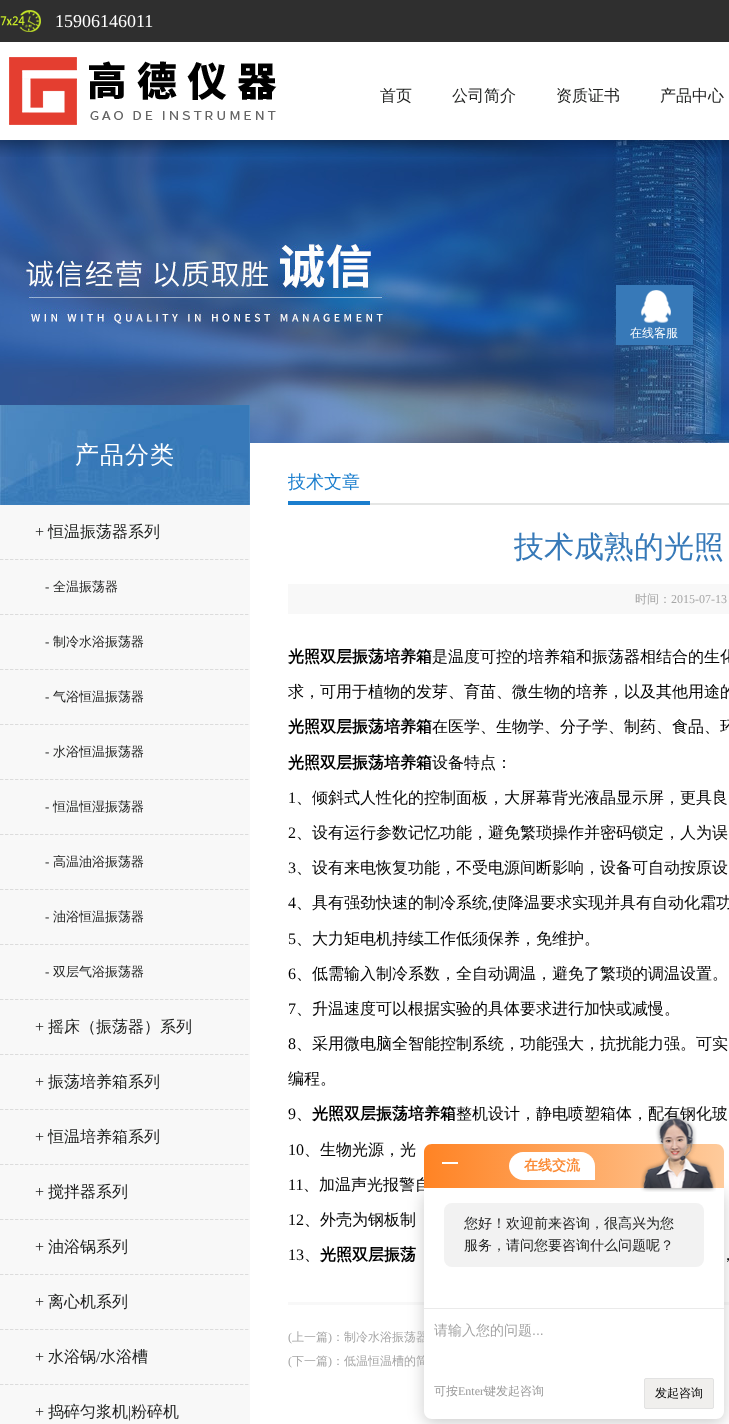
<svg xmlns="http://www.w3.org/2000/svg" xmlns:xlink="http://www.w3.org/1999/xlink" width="729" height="1424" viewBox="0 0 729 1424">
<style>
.cls-1{font:18px Liberation Serif;fill:#ffffff}
.cls-2{font:500 16px WenQuanYi Zen Hei;fill:#222322}
.cls-3{font:500 12px WenQuanYi Zen Hei;fill:#ffffff}
.cls-4{font:500 24px WenQuanYi Zen Hei;letter-spacing:1px;fill:#ffffff}
.cls-5{font:16px Liberation Serif;fill:#222322}
.cls-6{font:13px Liberation Serif;fill:#222322}
.cls-7{font:500 13px WenQuanYi Zen Hei;fill:#222322}
.cls-8{font:500 18px WenQuanYi Zen Hei;fill:#1a7ece}
.cls-9{font:500 30px WenQuanYi Zen Hei;fill:#3679b8}
.cls-10{font:500 12px WenQuanYi Zen Hei;fill:#a5a5a5}
.cls-11{font:12px Liberation Serif;fill:#a5a5a5}
.cls-12{font:bold 16px WenQuanYi Zen Hei;fill:#000000}
.cls-13{font:500 16px WenQuanYi Zen Hei;fill:#000000}
.cls-14{font:16px Liberation Serif;fill:#000000}
.cls-15{font:bold 14px WenQuanYi Zen Hei;fill:#fb8b36}
.cls-16{font:500 14px WenQuanYi Zen Hei;fill:#222322}
.cls-17{font:500 14px WenQuanYi Zen Hei;fill:#a5a5a5}
.cls-18{font:14px Liberation Sans;fill:#a5a5a5}
.cls-19{font:500 12px WenQuanYi Zen Hei;fill:#999999}
.cls-20{font:12px Liberation Serif;fill:#999999}
.cls-21{font:500 12px WenQuanYi Zen Hei;fill:#000000}
</style>
<defs>
<linearGradient id="g1" gradientUnits="userSpaceOnUse" x1="424" y1="1166" x2="724" y2="1166"><stop offset="0" stop-color="#ff8324"/><stop offset="1" stop-color="#fecb9c"/></linearGradient>
</defs>
<rect width="100%" height="100%" fill="#ffffff"/>
<rect fill="#2f2f2f" x="0" y="0" width="729" height="42"/>
<image xlink:href="image0.png" x="0" y="10" width="41" height="22"/>
<image xlink:href="image3.png" x="0" y="140" width="729" height="303"/>
<image xlink:href="image1.png" x="0" y="140" width="729" height="17"/>
<image xlink:href="image2.png" x="9" y="57" width="268" height="68"/>
<rect fill="#3779b8" x="616" y="285" width="77" height="60"/>
<image xlink:href="image4.png" x="641" y="290" width="30" height="33"/>
<rect fill="#f8f8f8" x="0" y="505" width="250" height="919"/>
<image xlink:href="image5.png" x="0" y="405" width="250" height="100"/>
<image xlink:href="image6.png" x="0" y="559" width="249" height="1"/>
<image xlink:href="image6.png" x="0" y="614" width="249" height="1"/>
<image xlink:href="image6.png" x="0" y="669" width="249" height="1"/>
<image xlink:href="image6.png" x="0" y="724" width="249" height="1"/>
<image xlink:href="image6.png" x="0" y="779" width="249" height="1"/>
<image xlink:href="image6.png" x="0" y="834" width="249" height="1"/>
<image xlink:href="image6.png" x="0" y="889" width="249" height="1"/>
<image xlink:href="image6.png" x="0" y="944" width="249" height="1"/>
<image xlink:href="image6.png" x="0" y="999" width="249" height="1"/>
<image xlink:href="image6.png" x="0" y="1054" width="249" height="1"/>
<image xlink:href="image6.png" x="0" y="1109" width="249" height="1"/>
<image xlink:href="image6.png" x="0" y="1164" width="249" height="1"/>
<image xlink:href="image6.png" x="0" y="1219" width="249" height="1"/>
<image xlink:href="image6.png" x="0" y="1274" width="249" height="1"/>
<image xlink:href="image6.png" x="0" y="1329" width="249" height="1"/>
<image xlink:href="image6.png" x="0" y="1384" width="249" height="1"/>
<rect fill="#e5e6e5" x="370" y="503" width="359" height="2"/>
<rect fill="#1a7ece" x="288" y="501" width="82" height="4"/>
<rect fill="#f8f8f8" x="288" y="584" width="441" height="30"/>
<rect fill="#f8f8f8" x="288" y="1302" width="441" height="3"/>
<rect fill="#000000" fill-opacity="0.2" filter="blur(8px)" x="424" y="1192" width="300" height="231" rx="8"/>
<text class="cls-1" x="55" y="27">15906146011</text>
<text class="cls-2" x="380" y="101">首页</text>
<text class="cls-2" x="452" y="101">公司简介</text>
<text class="cls-2" x="556" y="101">资质证书</text>
<text class="cls-2" x="660" y="101">产品中心</text>
<text class="cls-3" x="630" y="337">在线客服</text>
<text class="cls-4" x="75" y="463">产品分类</text>
<text class="cls-5" x="35" y="537">+</text>
<text class="cls-2" x="48" y="537">恒温振荡器系列</text>
<text class="cls-6" x="45" y="591">-</text>
<text class="cls-7" x="53" y="591">全温振荡器</text>
<text class="cls-6" x="45" y="646">-</text>
<text class="cls-7" x="53" y="646">制冷水浴振荡器</text>
<text class="cls-6" x="45" y="701">-</text>
<text class="cls-7" x="53" y="701">气浴恒温振荡器</text>
<text class="cls-6" x="45" y="756">-</text>
<text class="cls-7" x="53" y="756">水浴恒温振荡器</text>
<text class="cls-6" x="45" y="811">-</text>
<text class="cls-7" x="53" y="811">恒温恒湿振荡器</text>
<text class="cls-6" x="45" y="866">-</text>
<text class="cls-7" x="53" y="866">高温油浴振荡器</text>
<text class="cls-6" x="45" y="921">-</text>
<text class="cls-7" x="53" y="921">油浴恒温振荡器</text>
<text class="cls-6" x="45" y="976">-</text>
<text class="cls-7" x="53" y="976">双层气浴振荡器</text>
<text class="cls-5" x="35" y="1032">+</text>
<text class="cls-2" x="48" y="1032">摇床（振荡器）系列</text>
<text class="cls-5" x="35" y="1087">+</text>
<text class="cls-2" x="48" y="1087">振荡培养箱系列</text>
<text class="cls-5" x="35" y="1142">+</text>
<text class="cls-2" x="48" y="1142">恒温培养箱系列</text>
<text class="cls-5" x="35" y="1197">+</text>
<text class="cls-2" x="48" y="1197">搅拌器系列</text>
<text class="cls-5" x="35" y="1252">+</text>
<text class="cls-2" x="48" y="1252">油浴锅系列</text>
<text class="cls-5" x="35" y="1307">+</text>
<text class="cls-2" x="48" y="1307">离心机系列</text>
<text class="cls-5" x="35" y="1362">+</text>
<text class="cls-2" x="48" y="1362">水浴锅</text>
<text class="cls-5" x="96" y="1362">/</text>
<text class="cls-2" x="100" y="1362">水浴槽</text>
<text class="cls-5" x="35" y="1417">+</text>
<text class="cls-2" x="48" y="1417">捣碎匀浆机</text>
<text class="cls-5" x="128" y="1417">|</text>
<text class="cls-2" x="131" y="1417">粉碎机</text>
<text class="cls-8" x="288" y="488">技术文章</text>
<text class="cls-9" x="514" y="557">技术成熟的光照</text>
<text class="cls-10" x="635" y="603">时间：</text>
<text class="cls-11" x="671" y="603">2015-07-13</text>
<text class="cls-12" x="288" y="662">光照双层振荡培养箱</text>
<text class="cls-13" x="432" y="662">是温度可控的培养箱和振荡器相结合的生化</text>
<text class="cls-13" x="288" y="697">求，可用于植物的发芽、育苗、微生物的培养，以及其他用途的</text>
<text class="cls-12" x="288" y="732">光照双层振荡培养箱</text>
<text class="cls-13" x="432" y="732">在医学、生物学、分子学、制药、食品、环</text>
<text class="cls-12" x="288" y="768">光照双层振荡培养箱</text>
<text class="cls-13" x="432" y="768">设备特点：</text>
<text class="cls-14" x="288" y="803">1</text>
<text class="cls-13" x="296" y="803">、倾斜式人性化的控制面板，大屏幕背光液晶显示屏，更具良</text>
<text class="cls-14" x="288" y="838">2</text>
<text class="cls-13" x="296" y="838">、设有运行参数记忆功能，避免繁琐操作并密码锁定，人为误</text>
<text class="cls-14" x="288" y="873">3</text>
<text class="cls-13" x="296" y="873">、设有来电恢复功能，不受电源间断影响，设备可自动按原设</text>
<text class="cls-14" x="288" y="908">4</text>
<text class="cls-13" x="296" y="908">、具有强劲快速的制冷系统</text>
<text class="cls-13" x="492" y="908">使降温要求实现并具有自动化霜功</text>
<text class="cls-14" x="488" y="908">,</text>
<text class="cls-14" x="288" y="944">5</text>
<text class="cls-13" x="296" y="944">、大力矩电机持续工作低须保养，免维护。</text>
<text class="cls-14" x="288" y="979">6</text>
<text class="cls-13" x="296" y="979">、低需输入制冷系数，全自动调温，避免了繁琐的调温设置。</text>
<text class="cls-14" x="288" y="1014">7</text>
<text class="cls-13" x="296" y="1014">、升温速度可以根据实验的具体要求进行加快或减慢。</text>
<text class="cls-14" x="288" y="1049">8</text>
<text class="cls-13" x="296" y="1049">、采用微电脑全智能控制系统，功能强大，抗扰能力强。可实</text>
<text class="cls-13" x="288" y="1084">编程。</text>
<text class="cls-14" x="288" y="1119">9</text>
<text class="cls-13" x="296" y="1119">、</text>
<text class="cls-12" x="312" y="1119">光照双层振荡培养箱</text>
<text class="cls-13" x="456" y="1119">整机设计，静电喷塑箱体，配有钢化玻</text>
<text class="cls-14" x="288" y="1155">10</text>
<text class="cls-13" x="304" y="1155">、生物光源，光</text>
<text class="cls-14" x="288" y="1190">11</text>
<text class="cls-13" x="303" y="1190">、加温声光报警自</text>
<text class="cls-14" x="288" y="1225">12</text>
<text class="cls-13" x="304" y="1225">、外壳为钢板制</text>
<text class="cls-14" x="288" y="1260">13</text>
<text class="cls-13" x="304" y="1260">、</text>
<text class="cls-12" x="320" y="1260">光照双层振荡</text>
<text class="cls-13" x="720" y="1260">，</text>
<text class="cls-11" x="288" y="1341">(</text>
<text class="cls-10" x="292" y="1341">上一篇</text>
<text class="cls-11" x="328" y="1341">)</text>
<text class="cls-10" x="332" y="1341">：制冷水浴振荡器</text>
<text class="cls-11" x="288" y="1365">(</text>
<text class="cls-10" x="292" y="1365">下一篇</text>
<text class="cls-11" x="328" y="1365">)</text>
<text class="cls-10" x="332" y="1365">：低温恒温槽的简</text>
<path fill="url(#g1)" d="M432 1144H716C720.5 1144 724 1147.5 724 1152V1188H424V1152C424 1147.5 427.5 1144 432 1144Z"/>
<rect fill="#ffffff" x="442" y="1162" width="16" height="2"/>
<path fill="#ffffff" d="M523 1152H581C588.5 1152 595 1158.5 595 1166V1180H523C515.5 1180 509 1173.5 509 1166C509 1158.5 515.5 1152 523 1152Z"/>
<text class="cls-15" x="524" y="1170">在线交流</text>
<path fill="#ffffff" d="M424 1188H724V1411C724 1415.5 720.5 1419 716 1419H432C427.5 1419 424 1415.5 424 1411Z"/>
<image xlink:href="image7.png" x="640" y="1114" width="76" height="78"/>
<rect fill="#f2f2f2" x="444" y="1203" width="260" height="64" rx="8"/>
<text class="cls-16"><tspan x="464" y="1228">您好！欢迎前来咨询，很高兴为您</tspan><tspan x="464" y="1250">服务，请问您要咨询什么问题呢？</tspan></text>
<rect fill="#eaeaea" x="424" y="1308" width="300" height="1"/>
<text class="cls-17" x="434" y="1335">请输入您的问题</text>
<text class="cls-18" x="532" y="1335">...</text>
<text class="cls-19" x="434" y="1395">可按</text>
<text class="cls-20" x="458" y="1395">Enter</text>
<text class="cls-19" x="484" y="1395">键发起咨询</text>
<rect fill="#f0efed" stroke="#e2e2e2" x="644.5" y="1378.5" width="69" height="30" rx="1.5"/>
<text class="cls-21" x="655" y="1397">发起咨询</text>
</svg>
